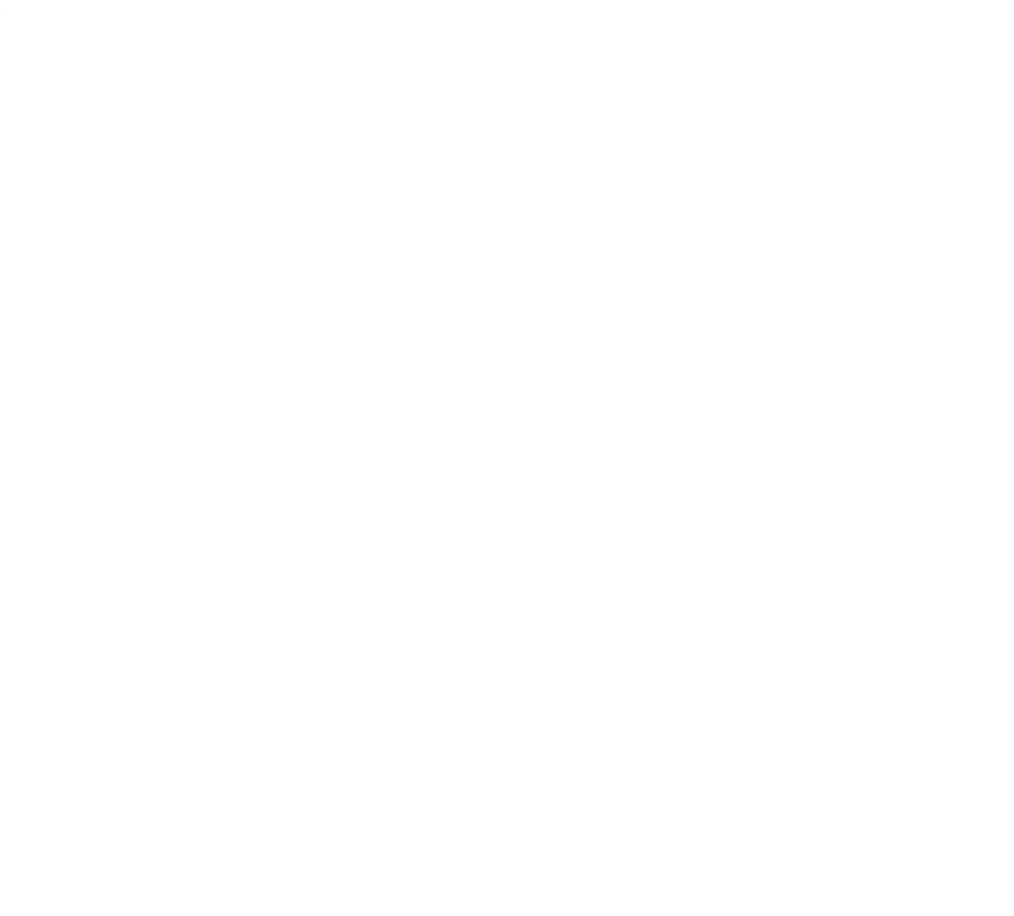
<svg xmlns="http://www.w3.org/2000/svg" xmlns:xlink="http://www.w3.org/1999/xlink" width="1014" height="916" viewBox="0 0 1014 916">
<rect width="100%" height="100%" fill="#ffffff"/>
<rect fill="#dee0fa" x="0" y="13" width="1" height="1"/>
</svg>
